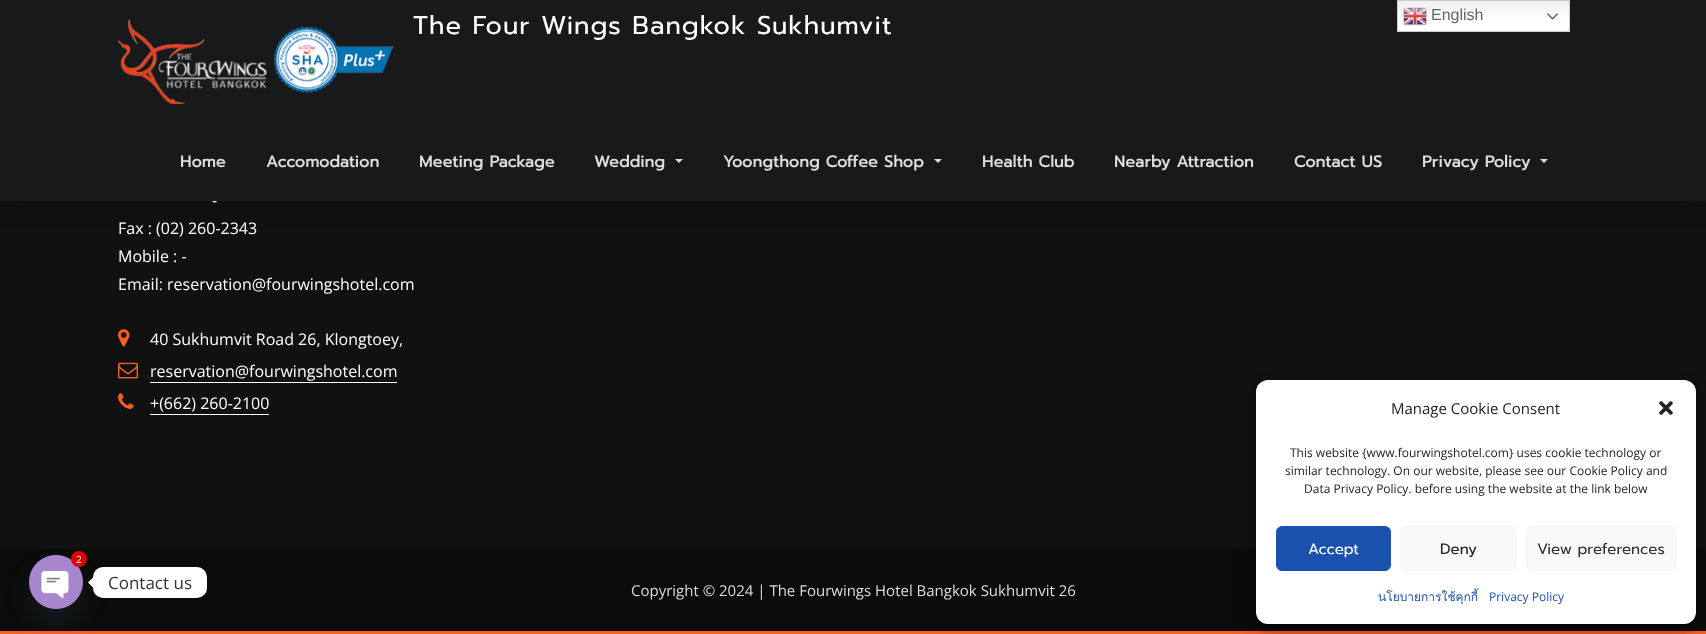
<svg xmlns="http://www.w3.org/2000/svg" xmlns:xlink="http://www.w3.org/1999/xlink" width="1706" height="634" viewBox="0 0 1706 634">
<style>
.cls-1{font:16px Liberation Sans;fill:#666666}
.cls-2{font:25.6px Prompt;letter-spacing:1px;fill:#ffffff}
.cls-3{font:bold 16px Prompt;letter-spacing:0.2px;fill:#dddddd}
.cls-4{font:16px Open Sans;fill:#ffffff}
.cls-5{font:15px Open Sans;fill:#dddddd}
.cls-6{font:10px Open Sans;fill:#ffffff}
.cls-7{font:17px Open Sans;fill:#333333}
.cls-8{font:15px Open Sans;fill:#222222}
.cls-9{font:12px Open Sans;fill:#222222}
.cls-10{font:15px Prompt;fill:#ffffff}
.cls-11{font:15px Prompt;fill:#222222}
.cls-12{font:15px Prompt;fill:#333333}
.cls-13{font:12px Loma;fill:#1a51af}
.cls-14{font:12px Open Sans;fill:#1a51af}
</style>
<defs>
<linearGradient id="g1" gradientUnits="userSpaceOnUse" x1="1484" y1="0" x2="1484" y2="32"><stop offset="0" stop-color="#efefef"/><stop offset="0.7" stop-color="#ffffff"/></linearGradient>
</defs>
<rect width="100%" height="100%" fill="#111111"/>
<rect fill="#000000" fill-opacity="0.1" filter="blur(10px)" x="0" y="8" width="1706" height="201"/>
<rect fill="#18191b" x="0" y="0" width="1706" height="201"/>
<rect fill="url(#g1)" x="1398" y="1" width="171" height="30"/>
<rect fill="none" stroke="#cccccc" x="1397.5" y="0.5" width="172" height="31"/>
<image xlink:href="image0.png" x="1403" y="7" width="24" height="19"/>
<image xlink:href="image1.png" x="1547" y="13" width="11" height="7"/>
<image xlink:href="image2.png" x="118" y="18" width="277" height="86"/>
<path fill="#dddddd" d="M675 159H683L679 163Z"/>
<path fill="#dddddd" d="M934 159H942L938 163Z"/>
<path fill="#dddddd" d="M1540 159H1548L1544 163Z"/>
<rect fill="#ff5d20" x="0" y="631" width="1706" height="3"/>
<image xlink:href="image3.png" x="118" y="329" width="12" height="18"/>
<image xlink:href="image4.png" x="118" y="362" width="20" height="17"/>
<rect fill="#ffffff" x="150" y="382" width="247" height="1"/>
<image xlink:href="image5.png" x="118" y="393" width="16" height="16"/>
<rect fill="#ffffff" x="150" y="414" width="119" height="1"/>
<rect fill="#0b0b0b" x="0" y="549" width="1706" height="82"/>
<rect fill="#ffffff" x="93" y="567" width="114" height="31" rx="10"/>
<path fill="#ffffff" d="M93 577.5V587.5L88 582.5Z"/>
<rect fill="#49687e" fill-opacity="0.16" filter="blur(12px)" x="29" y="571" width="54" height="54" rx="27"/>
<image xlink:href="image6.png" x="29" y="555" width="54" height="54"/>
<circle fill="#dd0000" cx="79" cy="559" r="8"/>
<rect fill="#000000" fill-opacity="0.23" filter="blur(3px)" x="1256" y="386" width="440" height="244" rx="12"/>
<rect fill="#000000" fill-opacity="0.19" filter="blur(10px)" x="1256" y="390" width="440" height="244" rx="12"/>
<rect fill="#ffffff" x="1256" y="380" width="440" height="244" rx="12"/>
<image xlink:href="image7.png" x="1659" y="401" width="14" height="14"/>
<rect fill="#1a51af" stroke="#1a51af" x="1276.5" y="526.5" width="114" height="44" rx="5.5"/>
<rect fill="#f9f9f9" stroke="#f2f2f2" x="1401.5" y="526.5" width="114" height="44" rx="5.5"/>
<rect fill="#f9f9f9" stroke="#f2f2f2" x="1526.5" y="526.5" width="149" height="44" rx="5.5"/>
<text class="cls-1" x="1431" y="20">English</text>
<text class="cls-2" x="413" y="34">The Four Wings Bangkok Sukhumvit</text>
<text class="cls-3" x="180" y="167">Home</text>
<text class="cls-3" x="266" y="167">Accomodation</text>
<text class="cls-3" x="419" y="167">Meeting Package</text>
<text class="cls-3" x="594" y="167">Wedding</text>
<text class="cls-3" x="723" y="167">Yoongthong Coffee Shop</text>
<text class="cls-3" x="982" y="167">Health Club</text>
<text class="cls-3" x="1114" y="167">Nearby Attraction</text>
<text class="cls-3" x="1294" y="167">Contact US</text>
<text class="cls-3" x="1422" y="167">Privacy Policy</text>
<text class="cls-4" x="212" y="206">-</text>
<text class="cls-4"><tspan x="118" y="234">Fax : (02) 260-2343</tspan><tspan x="118" y="262">Mobile : -</tspan><tspan x="118" y="290">Email: reservation@fourwingshotel.com</tspan></text>
<text class="cls-4" x="150" y="345">40 Sukhumvit Road 26, Klongtoey,</text>
<text class="cls-4" x="150" y="377">reservation@fourwingshotel.com</text>
<text class="cls-4" x="150" y="409">+(662) 260-2100</text>
<text class="cls-5" x="631" y="596">Copyright © 2024 | The Fourwings Hotel Bangkok Sukhumvit 26</text>
<text class="cls-6" x="76" y="563">2</text>
<text class="cls-7" x="108" y="589">Contact us</text>
<text class="cls-8" x="1391" y="414">Manage Cookie Consent</text>
<text class="cls-9" x="1290" y="457">This website {www.fourwingshotel.com} uses cookie technology or</text>
<text class="cls-9" x="1285" y="475">similar technology. On our website, please see our Cookie Policy and</text>
<text class="cls-9" x="1304" y="493">Data Privacy Policy. before using the website at the link below</text>
<text class="cls-10" x="1308" y="554">Accept</text>
<text class="cls-11" x="1440" y="554">Deny</text>
<text class="cls-12" x="1537" y="554">View preferences</text>
<text class="cls-13" x="1378" y="601">นโยบายการใช้คุกกี้</text>
<text class="cls-14" x="1489" y="601">Privacy Policy</text>
</svg>
